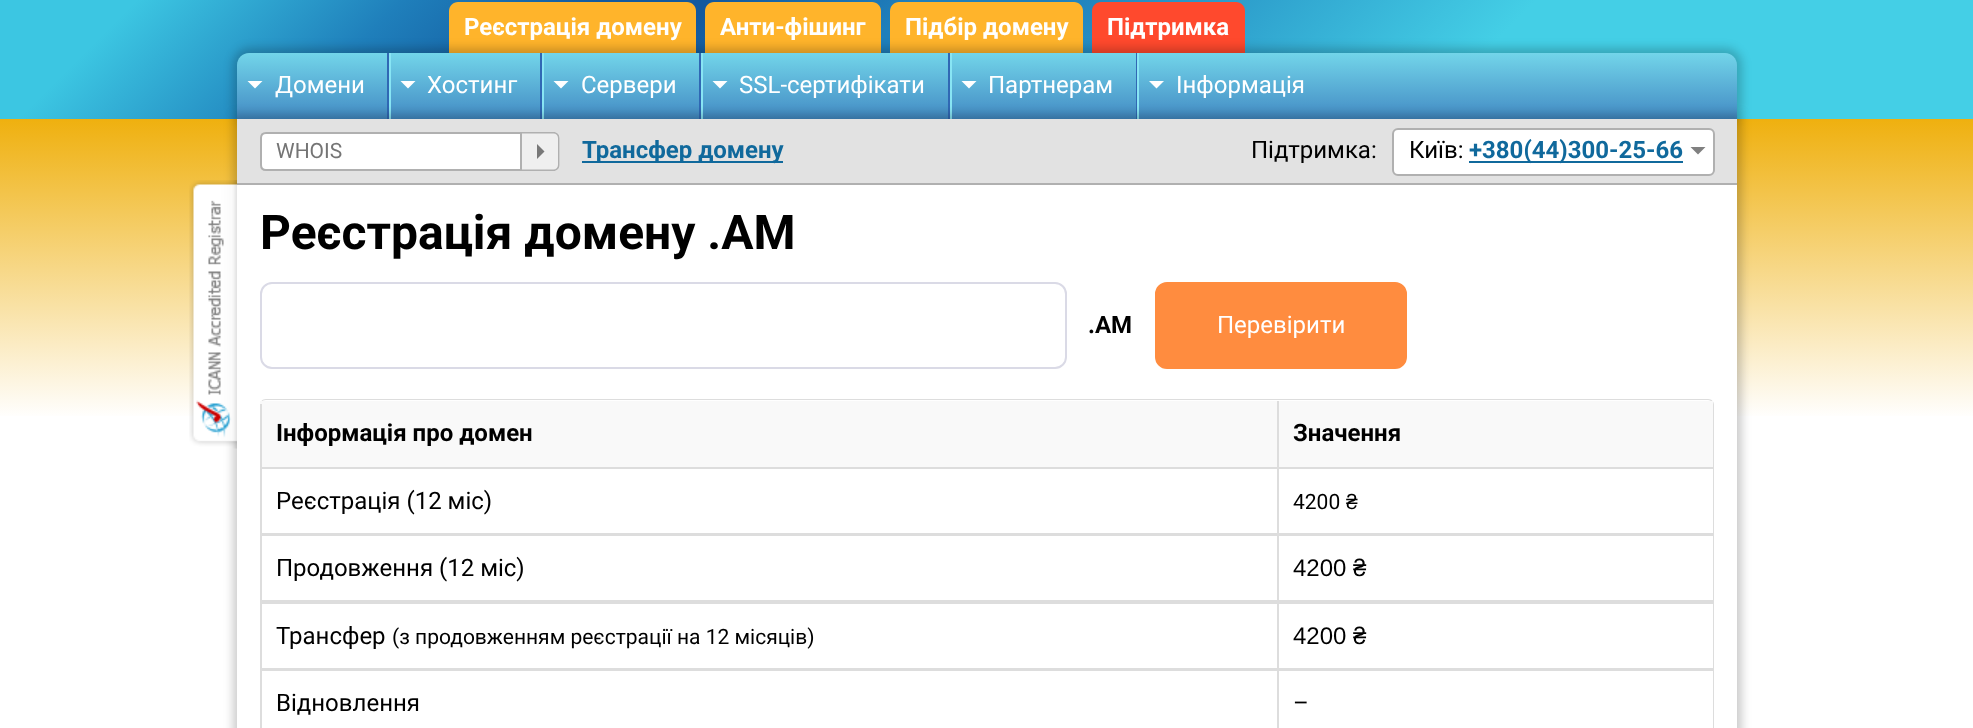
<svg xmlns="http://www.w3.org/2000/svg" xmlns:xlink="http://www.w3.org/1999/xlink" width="1973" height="728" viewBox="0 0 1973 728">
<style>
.cls-1{font:bold 24px Roboto;fill:#ffffff}
.cls-2{font:24px Roboto;fill:#ffffff}
.cls-3{font:21px Roboto;fill:#757575}
.cls-4{font:bold 24px Roboto;fill:#10699c}
.cls-5{font:24px Roboto;fill:#000000}
.cls-6{font:bold 48px Roboto;fill:#000000}
.cls-7{font:bold 24px Roboto;fill:#000000}
.cls-8{font:21px Roboto;fill:#000000}
.cls-9{font:21px Liberation Sans;fill:#000000}
.cls-10{font:24px Liberation Sans;fill:#000000}
</style>
<defs>
<linearGradient id="g1" gradientUnits="userSpaceOnUse" x1="432" y1="-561" x2="1542" y2="550"><stop offset="0.12" stop-color="#3cc6e2"/><stop offset="0.24" stop-color="#1f7fbb"/><stop offset="0.33" stop-color="#13599e"/><stop offset="0.38" stop-color="#13599e"/><stop offset="0.47" stop-color="#1f7fbb"/><stop offset="0.53" stop-color="#1f7fbb"/><stop offset="0.75" stop-color="#44cfe6"/><stop offset="1" stop-color="#44cfe6"/></linearGradient>
<linearGradient id="g2" gradientUnits="userSpaceOnUse" x1="987" y1="118" x2="987" y2="419"><stop offset="0" stop-color="#efb00e"/><stop offset="1" stop-color="#ffffff"/></linearGradient>
<linearGradient id="g3" gradientUnits="userSpaceOnUse" x1="987" y1="52" x2="987" y2="119"><stop offset="0" stop-color="#73d6ea"/><stop offset="1" stop-color="#438bc4"/></linearGradient>
</defs>
<rect width="100%" height="100%" fill="#ffffff"/>
<rect fill="url(#g1)" x="0" y="0" width="1973" height="119"/>
<path fill="#ffb42b" d="M458 2H687C692 2 696 6 696 11V53H449V11C449 6 453 2 458 2Z"/>
<path fill="#ffb42b" d="M714 2H872C877 2 881 6 881 11V53H705V11C705 6 709 2 714 2Z"/>
<path fill="#ffb42b" d="M899 2H1074C1079 2 1083 6 1083 11V53H890V11C890 6 894 2 899 2Z"/>
<path fill="#ff492d" d="M1101 2H1236C1241 2 1245 6 1245 11V53H1092V11C1092 6 1096 2 1101 2Z"/>
<rect fill="url(#g2)" x="0" y="119" width="1973" height="297"/>
<rect fill="#000000" fill-opacity="0.2" filter="blur(5px)" x="233" y="48" width="1509" height="75" rx="17"/>
<path fill="url(#g3)" d="M249 53H1725C1731.5 53 1737 58.5 1737 65V119H237V65C237 58.5 242.5 53 249 53Z"/>
<rect fill="#3068b4" x="387" y="53" width="2" height="66"/>
<path fill="#ffffff" d="M247.5 81H262.5L255 88.5Z"/>
<rect fill="#3068b4" x="540" y="53" width="2" height="66"/>
<rect fill="#88e5f4" x="389" y="53" width="2" height="66"/>
<path fill="#ffffff" d="M400.5 81H415.5L408 88.5Z"/>
<rect fill="#3068b4" x="699" y="53" width="2" height="66"/>
<rect fill="#88e5f4" x="542" y="53" width="2" height="66"/>
<path fill="#ffffff" d="M553.5 81H568.5L561 88.5Z"/>
<rect fill="#3068b4" x="948" y="53" width="2" height="66"/>
<rect fill="#88e5f4" x="701" y="53" width="2" height="66"/>
<path fill="#ffffff" d="M712.5 81H727.5L720 88.5Z"/>
<rect fill="#3068b4" x="1136" y="53" width="1" height="66"/>
<rect fill="#88e5f4" x="950" y="53" width="2" height="66"/>
<path fill="#ffffff" d="M961.5 81H976.5L969 88.5Z"/>
<rect fill="#88e5f4" x="1137" y="53" width="2" height="66"/>
<path fill="#ffffff" d="M1149 81H1164L1156.5 88.5Z"/>
<rect fill="#000000" fill-opacity="0.2" filter="blur(5px)" x="233" y="114" width="1509" height="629"/>
<rect fill="#e2e2e2" x="237" y="119" width="1500" height="64"/>
<rect fill="#b0b0b0" x="237" y="183" width="1500" height="2"/>
<path fill="#ffffff" stroke="#b0b0b0" stroke-width="2" d="M266 133H521V170H266C263 170 261 168 261 165V138C261 135 263 133 266 133Z"/>
<path fill="#efefef" d="M522 132H554C557.5 132 560 134.5 560 138V165C560 168.5 557.5 171 554 171H522Z"/>
<path fill="#b0b0b0" fill-rule="evenodd" d="M522 132H553.5C557 132 559.5 134.5 559.5 138V165C559.5 168.5 557 171 553.5 171H522ZM522 133.5H553.5C556 133.5 558 135.5 558 138V165C558 167.5 556 169.5 553.5 169.5H522Z"/>
<path fill="#787878" d="M537 159V144L544.5 151.5Z"/>
<rect fill="#10699c" x="582" y="161" width="201" height="2"/>
<rect fill="#ffffff" stroke="#b0b0b0" stroke-width="2" x="1393" y="129" width="321" height="46" rx="5"/>
<rect fill="#10699c" x="1469" y="161" width="214" height="2"/>
<path fill="#808080" d="M1690.5 147H1705.5L1698 154.5Z"/>
<rect fill="#ffffff" x="237" y="185" width="1500" height="543"/>
<image xlink:href="image0.png" x="189" y="180" width="48" height="269"/>
<rect fill="none" stroke="#dadae6" stroke-width="2" x="261" y="283" width="805" height="85" rx="11"/>
<rect fill="#ff8c3f" stroke="#ff8c3f" stroke-width="2" x="1156" y="283" width="250" height="85" rx="11"/>
<path fill="#dddddd" fill-rule="evenodd" d="M266 399H1708C1712 399 1714 402 1714 405V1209C1714 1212 1712 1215 1708 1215H266C262 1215 260 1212 260 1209V405C260 402 262 399 266 399ZM266 400H1708C1711 400 1713 403 1713 405V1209C1713 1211 1711 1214 1708 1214H266C262 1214 260 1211 260 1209V405C260 403 262 400 266 400Z"/>
<rect fill="#f9f9f9" x="260" y="401" width="1453" height="66"/>
<rect fill="#dddddd" x="260" y="404" width="2" height="63"/>
<rect fill="#dddddd" x="1277" y="401" width="2" height="66"/>
<rect fill="#dddddd" x="260" y="533" width="1453" height="1"/>
<rect fill="#dddddd" x="260" y="467" width="1453" height="2"/>
<rect fill="#dddddd" x="260" y="467" width="2" height="67"/>
<rect fill="#dddddd" x="1277" y="467" width="2" height="67"/>
<rect fill="#dddddd" x="260" y="600" width="1453" height="2"/>
<rect fill="#dddddd" x="260" y="534" width="1453" height="2"/>
<rect fill="#dddddd" x="260" y="534" width="2" height="68"/>
<rect fill="#dddddd" x="1277" y="534" width="2" height="68"/>
<rect fill="#dddddd" x="260" y="668" width="1453" height="1"/>
<rect fill="#dddddd" x="260" y="602" width="1453" height="2"/>
<rect fill="#dddddd" x="260" y="602" width="2" height="67"/>
<rect fill="#dddddd" x="1277" y="602" width="2" height="67"/>
<rect fill="#dddddd" x="260" y="669" width="1453" height="2"/>
<rect fill="#dddddd" x="260" y="669" width="2" height="59"/>
<rect fill="#dddddd" x="1277" y="669" width="2" height="59"/>
<text class="cls-1" x="464" y="35">Реєстрація домену</text>
<text class="cls-1" x="720" y="35">Анти-фішинг</text>
<text class="cls-1" x="905" y="35">Підбір домену</text>
<text class="cls-1" x="1107" y="35">Підтримка</text>
<text class="cls-2" x="275" y="93">Домени</text>
<text class="cls-2" x="427" y="93">Хостинг</text>
<text class="cls-2" x="581" y="93">Сервери</text>
<text class="cls-2" x="739" y="93">SSL-сертифікати</text>
<text class="cls-2" x="988" y="93">Партнерам</text>
<text class="cls-2" x="1176" y="93">Інформація</text>
<text class="cls-3" x="276" y="158">WHOIS</text>
<text class="cls-4" x="582" y="158">Трансфер домену</text>
<text class="cls-5" x="1251" y="158">Підтримка:</text>
<text class="cls-5" x="1409" y="158">Київ:</text>
<text class="cls-4" x="1469" y="158">+380(44)300-25-66</text>
<text class="cls-6" x="260" y="249">Реєстрація домену .AM</text>
<text class="cls-7" x="1088" y="333">.AM</text>
<text class="cls-2" x="1217" y="333">Перевірити</text>
<text class="cls-7" x="276" y="441">Інформація про домен</text>
<text class="cls-7" x="1293" y="441">Значення</text>
<text class="cls-5" x="276" y="509">Реєстрація (12 міс)</text>
<text class="cls-8" x="1293" y="509">4200</text>
<text class="cls-9" x="1346" y="509">₴</text>
<text class="cls-5" x="276" y="576">Продовження (12 міс)</text>
<text class="cls-10" x="1293" y="576">4200 ₴</text>
<text class="cls-5" x="276" y="644">Трансфер</text>
<text class="cls-8" x="392" y="644">(з продовженням реєстрації на 12 місяців)</text>
<text class="cls-10" x="1293" y="644">4200 ₴</text>
<text class="cls-5" x="276" y="711">Відновлення</text>
<text class="cls-5" x="1293" y="711">–</text>
</svg>
